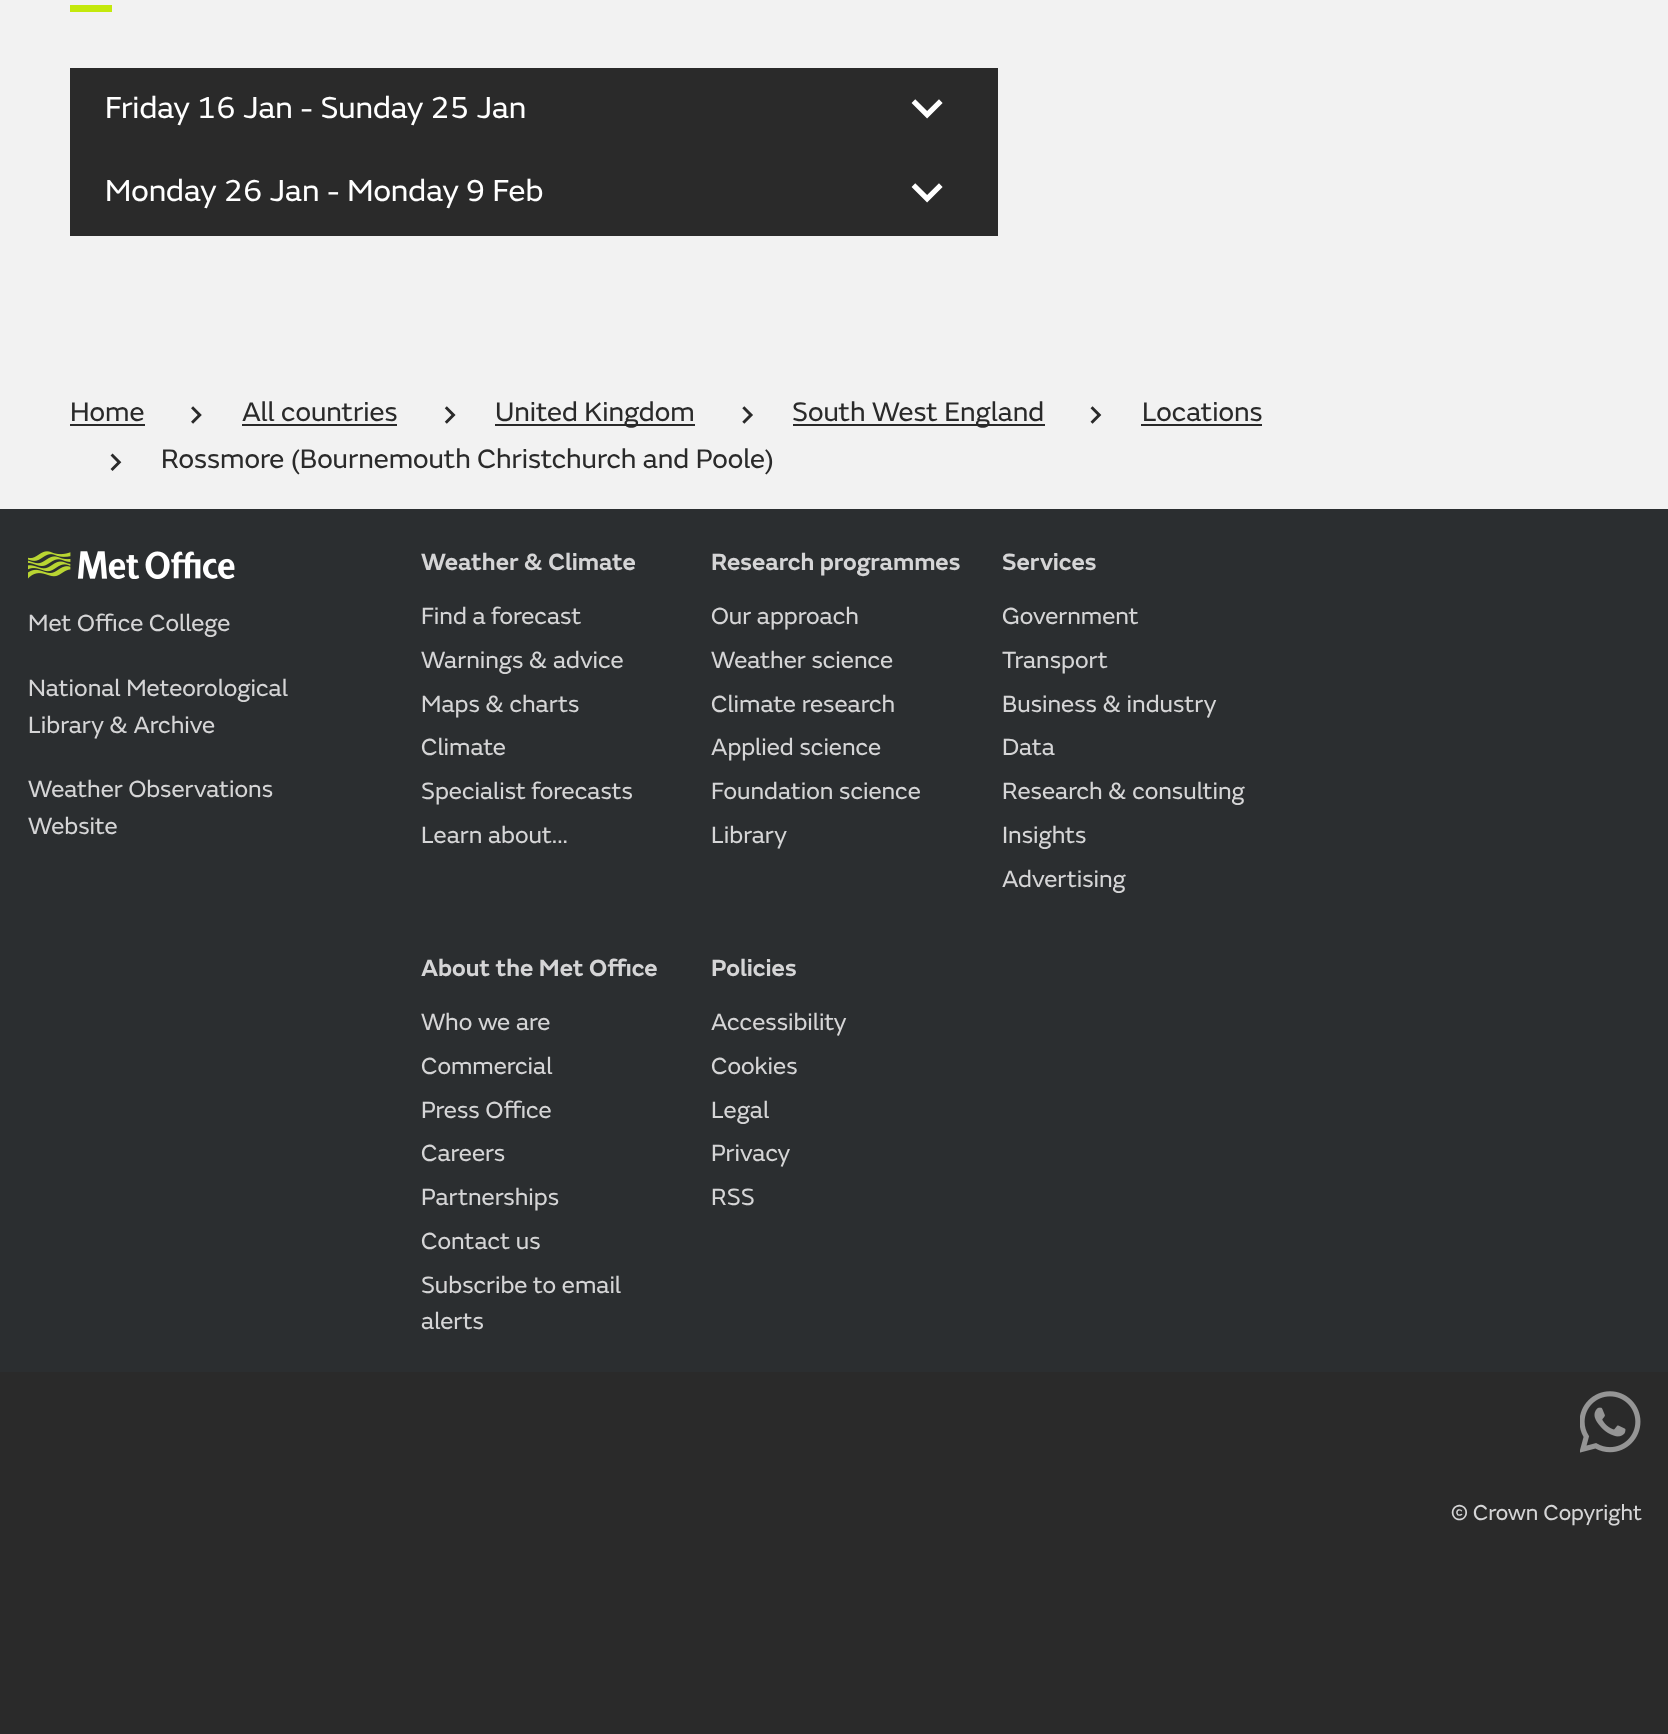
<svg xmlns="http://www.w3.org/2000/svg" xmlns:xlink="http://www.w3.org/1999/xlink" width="1668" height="1734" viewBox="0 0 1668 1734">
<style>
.cls-1{font:31.5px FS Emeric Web;fill:#ffffff}
.cls-2{font:28px FS Emeric Web;fill:#2a2a2a}
.cls-3{font:24.5px FS Emeric Web;fill:#d5d5d6}
.cls-4{font:600 24.5px FS Emeric Web;fill:#d5d5d6}
.cls-5{font:22.5px FS Emeric Web;fill:#d5d5d6}
</style>
<rect width="100%" height="100%" fill="#f2f2f2"/>
<rect fill="#c4e90c" x="70" y="5" width="42" height="7"/>
<rect fill="#2a2a2a" x="70" y="68" width="928" height="168"/>
<image xlink:href="image0.png" x="911" y="99" width="32" height="20"/>
<image xlink:href="image1.png" x="911" y="183" width="32" height="20"/>
<rect fill="#2a2a2a" x="70" y="424" width="75" height="2"/>
<image xlink:href="image2.png" x="191" y="406" width="11" height="18"/>
<rect fill="#2a2a2a" x="242" y="424" width="155" height="2"/>
<image xlink:href="image3.png" x="444" y="406" width="12" height="18"/>
<rect fill="#2a2a2a" x="495" y="424" width="200" height="2"/>
<image xlink:href="image4.png" x="742" y="406" width="11" height="18"/>
<rect fill="#2a2a2a" x="793" y="424" width="252" height="2"/>
<image xlink:href="image5.png" x="1090" y="406" width="12" height="18"/>
<rect fill="#2a2a2a" x="1141" y="424" width="121" height="2"/>
<image xlink:href="image6.png" x="110" y="453" width="12" height="18"/>
<rect fill="#2b2e30" x="0" y="509" width="1668" height="863"/>
<image xlink:href="image7.png" x="28" y="551" width="207" height="28"/>
<rect fill="#2a2a2a" x="0" y="1372" width="1668" height="362"/>
<image xlink:href="image8.png" x="1580" y="1391" width="61" height="62"/>
<text class="cls-1" x="105" y="118">Friday 16 Jan - Sunday 25 Jan</text>
<text class="cls-1" x="105" y="201">Monday 26 Jan - Monday 9 Feb</text>
<text class="cls-2" x="70" y="421">Home</text>
<text class="cls-2" x="242" y="421">All countries</text>
<text class="cls-2" x="495" y="421">United Kingdom</text>
<text class="cls-2" x="792" y="421">South West England</text>
<text class="cls-2" x="1142" y="421">Locations</text>
<text class="cls-2" x="161" y="468">Rossmore (Bournemouth Christchurch and Poole)</text>
<text class="cls-3" x="28" y="631">Met Office College</text>
<text class="cls-3"><tspan x="28" y="696">National Meteorological</tspan><tspan x="28" y="733">Library &amp; Archive</tspan></text>
<text class="cls-3"><tspan x="28" y="797">Weather Observations</tspan><tspan x="28" y="834">Website</tspan></text>
<text class="cls-4" x="421" y="570">Weather &amp; Climate</text>
<text class="cls-3"><tspan x="421" y="624">Find a forecast</tspan><tspan x="421" y="668">Warnings &amp; advice</tspan><tspan x="421" y="712">Maps &amp; charts</tspan><tspan x="421" y="755">Climate</tspan><tspan x="421" y="799">Specialist forecasts</tspan><tspan x="421" y="843">Learn about...</tspan></text>
<text class="cls-4" x="711" y="570">Research programmes</text>
<text class="cls-3"><tspan x="711" y="624">Our approach</tspan><tspan x="711" y="668">Weather science</tspan><tspan x="711" y="712">Climate research</tspan><tspan x="711" y="755">Applied science</tspan><tspan x="711" y="799">Foundation science</tspan><tspan x="711" y="843">Library</tspan></text>
<text class="cls-4" x="1002" y="570">Services</text>
<text class="cls-3"><tspan x="1002" y="624">Government</tspan><tspan x="1002" y="668">Transport</tspan><tspan x="1002" y="712">Business &amp; industry</tspan><tspan x="1002" y="755">Data</tspan><tspan x="1002" y="799">Research &amp; consulting</tspan><tspan x="1002" y="843">Insights</tspan><tspan x="1002" y="887">Advertising</tspan></text>
<text class="cls-4" x="421" y="976">About the Met Office</text>
<text class="cls-3"><tspan x="421" y="1030">Who we are</tspan><tspan x="421" y="1074">Commercial</tspan><tspan x="421" y="1118">Press Office</tspan><tspan x="421" y="1161">Careers</tspan><tspan x="421" y="1205">Partnerships</tspan><tspan x="421" y="1249">Contact us</tspan><tspan x="421" y="1293">Subscribe to email</tspan><tspan x="421" y="1329">alerts</tspan></text>
<text class="cls-4" x="711" y="976">Policies</text>
<text class="cls-3"><tspan x="711" y="1030">Accessibility</tspan><tspan x="711" y="1074">Cookies</tspan><tspan x="711" y="1118">Legal</tspan><tspan x="711" y="1161">Privacy</tspan><tspan x="711" y="1205">RSS</tspan></text>
<text class="cls-5" x="1451" y="1520">© Crown Copyright</text>
</svg>
